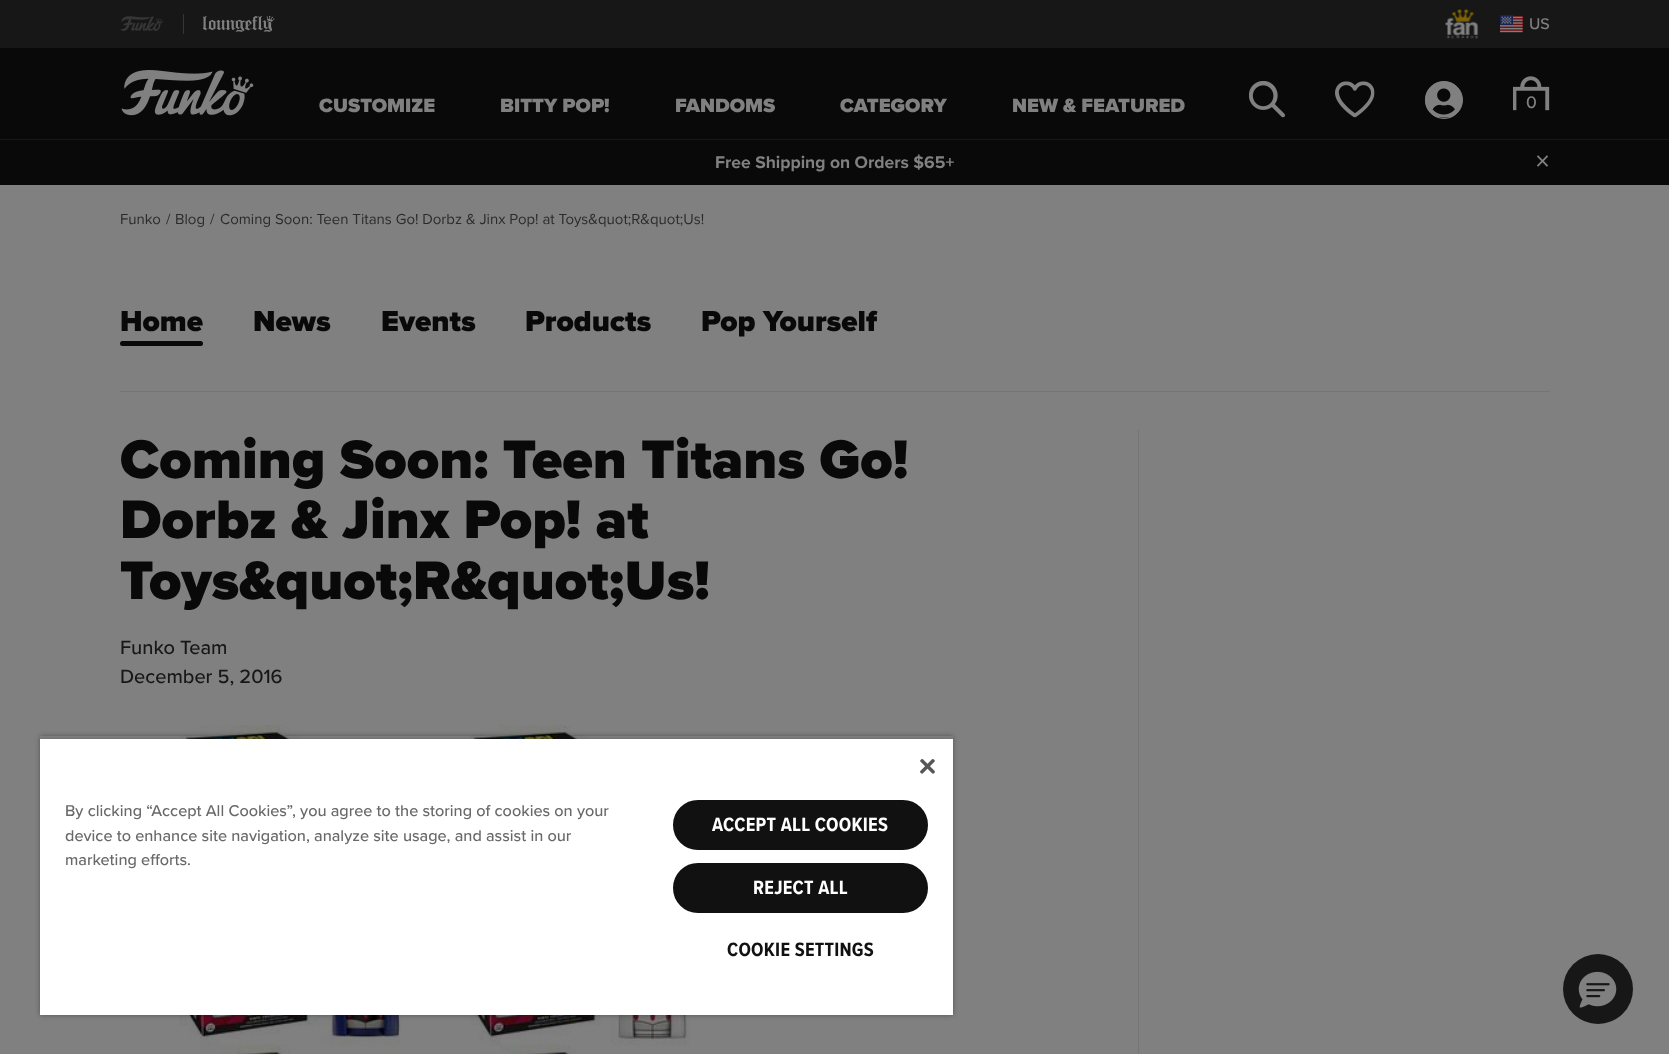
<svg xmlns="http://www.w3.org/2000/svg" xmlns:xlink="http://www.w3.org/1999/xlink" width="1669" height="1054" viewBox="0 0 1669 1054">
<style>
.cls-1{font:500 16px Proxima Nova;fill:#808080}
.cls-2{font:900 20px Proxima Nova;fill:#808080}
.cls-3{font:500 17.5px Proxima Nova;fill:#808080}
.cls-4{font:bold 17.5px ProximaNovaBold;fill:#808080}
.cls-5{font:500 30px Proxima Nova;fill:#808080}
.cls-6{font:15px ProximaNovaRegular;fill:#2b2b2b}
.cls-7{font:900 30px Proxima Nova;fill:#090909}
.cls-8{font:900 56.25px Proxima Nova;fill:#090909}
.cls-9{font:500 20px Proxima Nova;fill:#171717}
.cls-10{font:500 16.25px Proxima Nova;fill:#696969}
.cls-11{font:bold 20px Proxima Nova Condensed;letter-spacing:0.25px;fill:#ffffff}
.cls-12{font:bold 20px Proxima Nova Condensed;letter-spacing:0.25px;fill:#111111}
</style>
<defs>
<clipPath id="clip1"><path d="M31 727H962V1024H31ZM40 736H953V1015H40Z" clip-rule="evenodd"/></clipPath>
<clipPath id="clip2"><rect x="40" y="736" width="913" height="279"/></clipPath>
</defs>
<rect width="100%" height="100%" fill="#808080"/>
<rect fill="#090909" x="0" y="48" width="1669" height="137"/>
<rect fill="#171717" x="0" y="0" width="1669" height="48"/>
<image xlink:href="image0.png" x="120" y="16" width="44" height="15"/>
<rect fill="#363636" x="183" y="14" width="1" height="20"/>
<image xlink:href="image1.png" x="203" y="15" width="72" height="17"/>
<image xlink:href="image2.png" x="1445" y="9" width="34" height="30"/>
<image xlink:href="image3.png" x="1500" y="15" width="23" height="18"/>
<image xlink:href="image4.png" x="121" y="70" width="133" height="46"/>
<image xlink:href="image5.png" x="1249" y="81" width="36" height="37"/>
<image xlink:href="image6.png" x="1335" y="81" width="40" height="37"/>
<image xlink:href="image7.png" x="1425" y="81" width="38" height="37"/>
<circle fill="none" stroke="#808080" cx="1444" cy="100" r="18.5"/>
<image xlink:href="image8.png" x="1513" y="76" width="37" height="35"/>
<rect fill="#171717" x="0" y="139" width="1669" height="1"/>
<rect fill="#757575" x="120" y="391" width="1430" height="1"/>
<rect fill="#090909" x="120" y="341" width="83" height="5" rx="2.5"/>
<image xlink:href="image9.png" x="179" y="725" width="522" height="329"/>
<rect fill="#757575" x="1138" y="430" width="1" height="624"/>
<g clip-path="url(#clip1)">
<rect fill="#000000" fill-opacity="0.35" filter="blur(2.5px)" x="40" y="736" width="913" height="279"/>
</g>
<g clip-path="url(#clip2)">
<rect fill="#000000" fill-opacity="0.2" filter="blur(2.5px)" x="40" y="739" width="913" height="276"/>
</g>
<rect fill="#ffffff" x="40" y="739" width="913" height="276"/>
<image xlink:href="image10.png" x="920" y="759" width="15" height="15"/>
<rect fill="#111111" stroke="#111111" stroke-width="3" x="674.5" y="801.5" width="252" height="47" rx="23.5"/>
<rect fill="#111111" stroke="#111111" stroke-width="3" x="674.5" y="864.5" width="252" height="47" rx="23.5"/>
<circle fill="#171717" cx="1598" cy="989" r="35"/>
<image xlink:href="image11.png" x="1578" y="971" width="39" height="37"/>
<text class="cls-1" x="1529" y="29">US</text>
<text class="cls-2" x="319" y="112">CUSTOMIZE</text>
<text class="cls-2" x="500" y="112">BITTY POP!</text>
<text class="cls-2" x="675" y="112">FANDOMS</text>
<text class="cls-2" x="840" y="112">CATEGORY</text>
<text class="cls-2" x="1012" y="112">NEW &amp; FEATURED</text>
<text class="cls-3" x="1526" y="108">0</text>
<text class="cls-4" x="715" y="168">Free Shipping on Orders $65+</text>
<text class="cls-5" x="1535" y="171">×</text>
<text class="cls-6" x="120" y="224">Funko</text>
<text class="cls-6" x="166" y="224">/</text>
<text class="cls-6" x="175" y="224">Blog</text>
<text class="cls-6" x="210" y="224">/</text>
<text class="cls-6" x="220" y="224">Coming Soon: Teen Titans Go! Dorbz &amp; Jinx Pop! at Toys&amp;quot;R&amp;quot;Us!</text>
<text class="cls-7" x="120" y="331">Home</text>
<text class="cls-7" x="253" y="331">News</text>
<text class="cls-7" x="381" y="331">Events</text>
<text class="cls-7" x="525" y="331">Products</text>
<text class="cls-7" x="701" y="331">Pop Yourself</text>
<text class="cls-8"><tspan x="120" y="478">Coming Soon: Teen Titans Go!</tspan><tspan x="120" y="538">Dorbz &amp; Jinx Pop! at</tspan><tspan x="120" y="599">Toys&amp;quot;R&amp;quot;Us!</tspan></text>
<text class="cls-9"><tspan x="120" y="654">Funko Team</tspan><tspan x="120" y="683">December 5, 2016</tspan></text>
<text class="cls-10"><tspan x="65" y="816">By clicking “Accept All Cookies”, you agree to the storing of cookies on your</tspan><tspan x="65" y="841">device to enhance site navigation, analyze site usage, and assist in our</tspan><tspan x="65" y="865">marketing efforts.</tspan></text>
<text class="cls-11" x="712" y="831">ACCEPT ALL COOKIES</text>
<text class="cls-11" x="753" y="894">REJECT ALL</text>
<text class="cls-12" x="727" y="956">COOKIE SETTINGS</text>
</svg>
